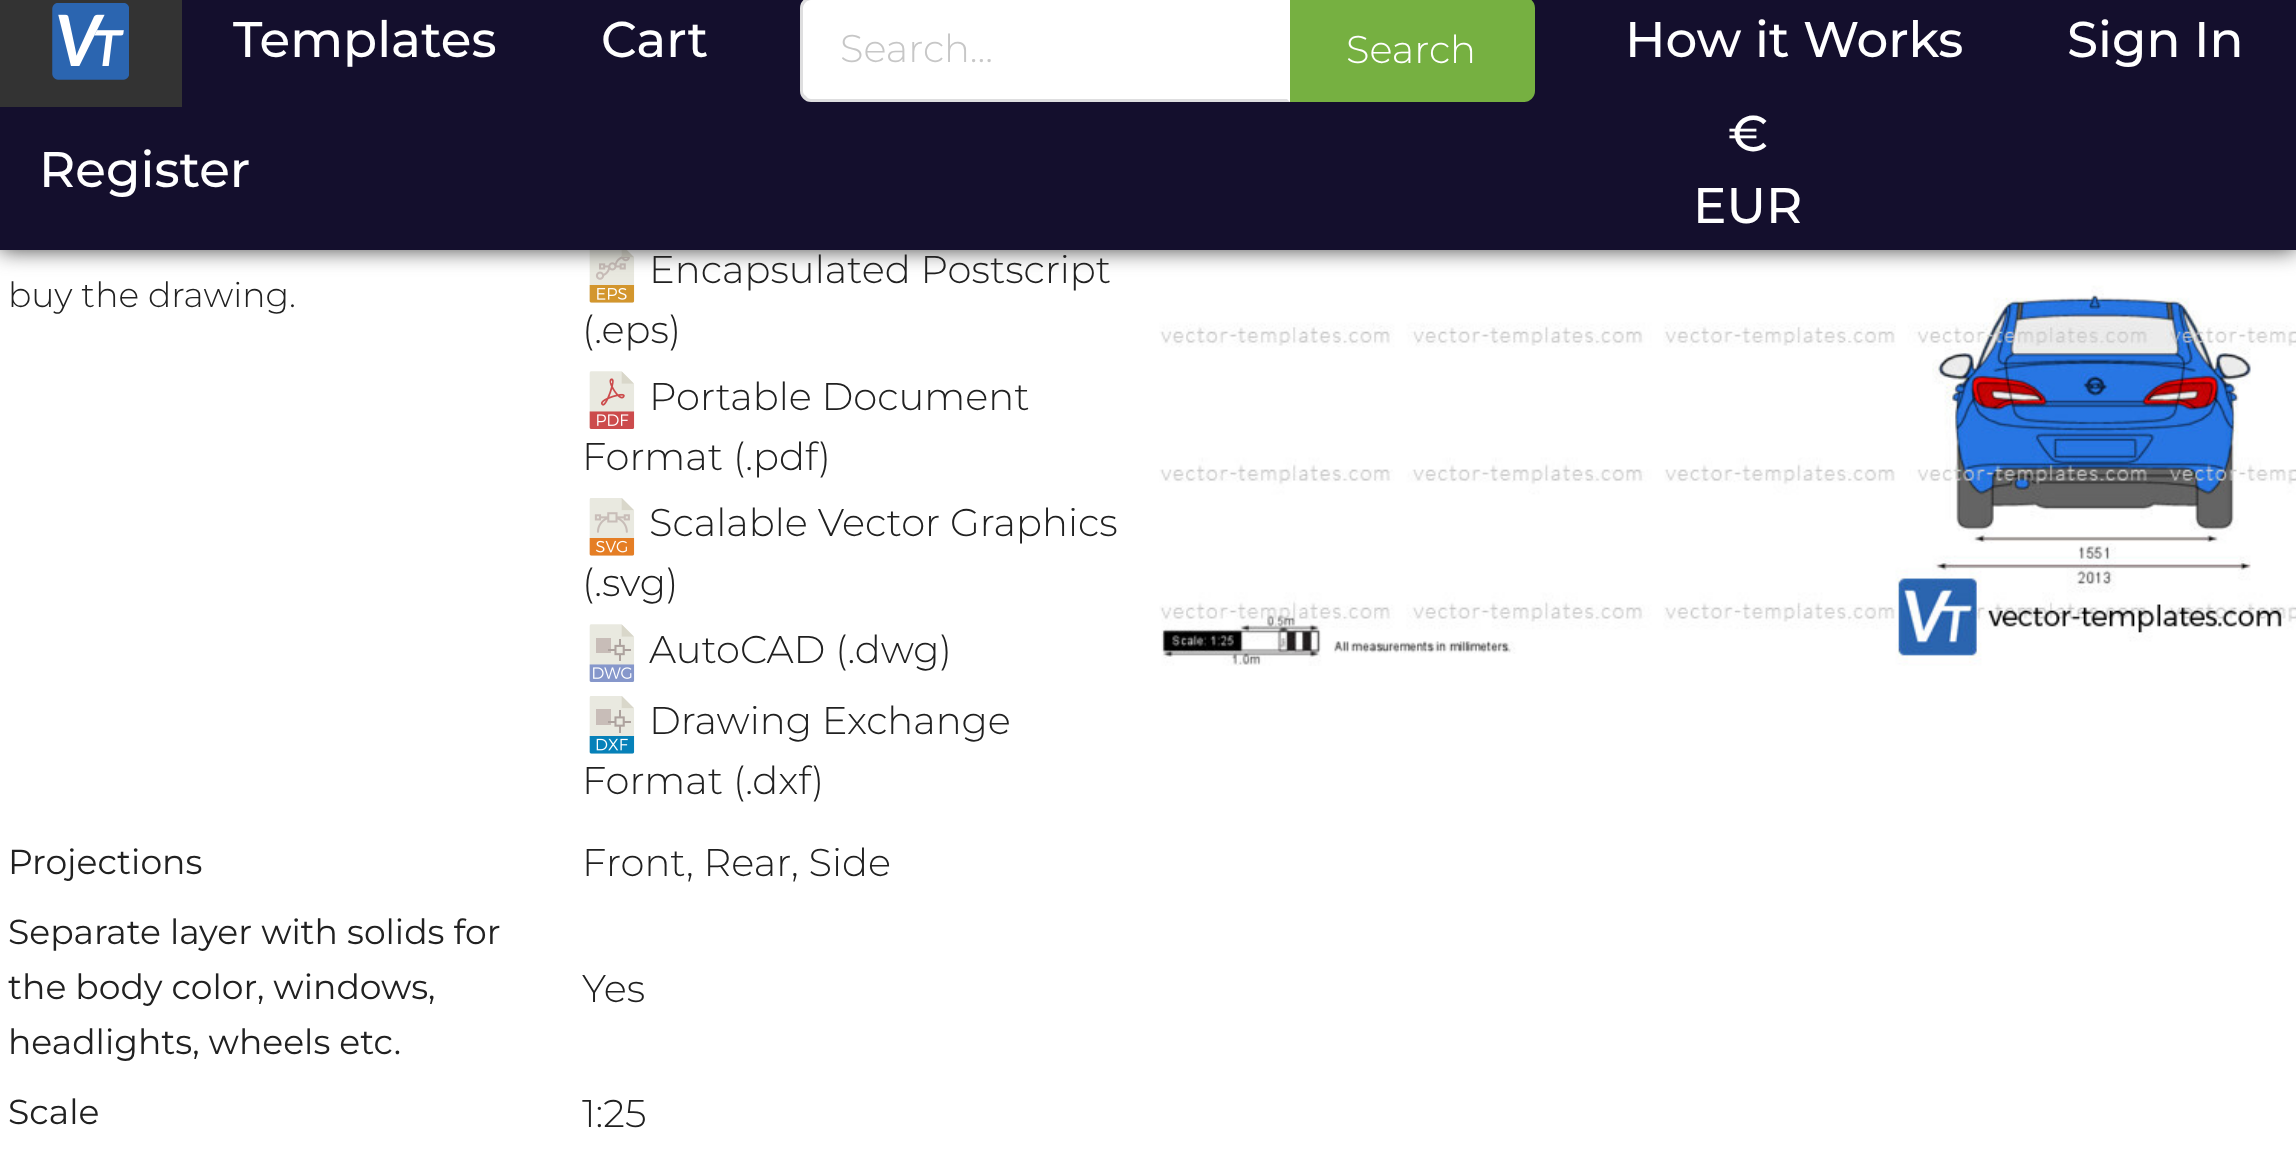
<svg xmlns="http://www.w3.org/2000/svg" xmlns:xlink="http://www.w3.org/1999/xlink" width="2296" height="1157" viewBox="0 0 2296 1157">
<style>
.cls-1{font:500 50px Montserrat;fill:#ffffff}
.cls-2{font:300 38.5px Montserrat;fill:#c7c7c7}
.cls-3{font:300 38.5px Montserrat;fill:#ffffff}
.cls-4{font:300 34.6px Montserrat;fill:#212121}
.cls-5{font:300 38.5px Montserrat;fill:#212121}
.cls-6{font:34.6px Montserrat;fill:#212121}
</style>
<rect width="100%" height="100%" fill="#ffffff"/>
<image xlink:href="image1.png" x="589" y="250" width="46" height="53"/>
<image xlink:href="image6.png" x="1159" y="250" width="1137" height="416"/>
<rect fill="#444444" filter="blur(11px)" x="0" y="-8" width="2296" height="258"/>
<rect fill="#140f2d" x="0" y="0" width="2296" height="250"/>
<rect fill="#333333" x="0" y="0" width="182" height="107"/>
<image xlink:href="image0.png" x="52" y="3" width="77" height="77"/>
<path fill="#ffffff" d="M811-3H1290V102H811C805 102 800 97 800 91V8C800 2 805-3 811-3Z"/>
<path fill="#dedede" d="M811 0C809 0 807 1 806 2L803 0C805-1 807-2 809-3H1290L1287 0Z"/>
<path fill="#222426" fill-opacity="0.15" d="M1290 102H809C807 101 805 100 803 99L806 96C807 98 809 99 811 99H1287Z"/>
<path fill="#222426" fill-opacity="0.15" d="M800 6C801 4 802 2 803 0L806 2C804 4 803 6 803 8V91C803 93 804 95 806 96L803 99C802 97 801 95 800 93Z"/>
<path fill="#76b041" d="M1290-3H1524C1530-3 1535 2 1535 8V91C1535 97 1530 102 1524 102H1290Z"/>
<image xlink:href="image2.png" x="589" y="371" width="46" height="58"/>
<image xlink:href="image3.png" x="589" y="498" width="46" height="58"/>
<image xlink:href="image4.png" x="589" y="624" width="46" height="58"/>
<image xlink:href="image5.png" x="589" y="696" width="46" height="58"/>
<text class="cls-1" x="233" y="57">Templates</text>
<text class="cls-1" x="601" y="57">Cart</text>
<text class="cls-2" x="840" y="62">Search...</text>
<text class="cls-3" x="1346" y="63">Search</text>
<text class="cls-1" x="1625" y="57">How it Works</text>
<text class="cls-1" x="2067" y="57">Sign In</text>
<text class="cls-1" x="39" y="187">Register</text>
<text class="cls-1" x="1728" y="151">€</text>
<text class="cls-1" x="1693" y="223">EUR</text>
<text class="cls-4" x="8" y="307">buy the drawing.</text>
<text class="cls-5" x="649" y="283">Encapsulated Postscript</text>
<text class="cls-5" x="582" y="343">(.eps)</text>
<text class="cls-5" x="649" y="410">Portable Document</text>
<text class="cls-5" x="582" y="470">Format (.pdf)</text>
<text class="cls-5" x="649" y="536">Scalable Vector Graphics</text>
<text class="cls-5" x="582" y="596">(.svg)</text>
<text class="cls-5"><tspan x="649" y="663">AutoCAD (.dwg)</tspan><tspan x="649" y="734">Drawing Exchange</tspan></text>
<text class="cls-5" x="582" y="794">Format (.dxf)</text>
<text class="cls-6" x="8" y="874">Projections</text>
<text class="cls-5" x="582" y="876">Front, Rear, Side</text>
<text class="cls-6"><tspan x="8" y="944">Separate layer with solids for</tspan><tspan x="8" y="999">the body color, windows,</tspan><tspan x="8" y="1054">headlights, wheels etc.</tspan></text>
<text class="cls-5" x="582" y="1002">Yes</text>
<text class="cls-6" x="8" y="1124">Scale</text>
<text class="cls-5" x="582" y="1127">1:25</text>
</svg>
